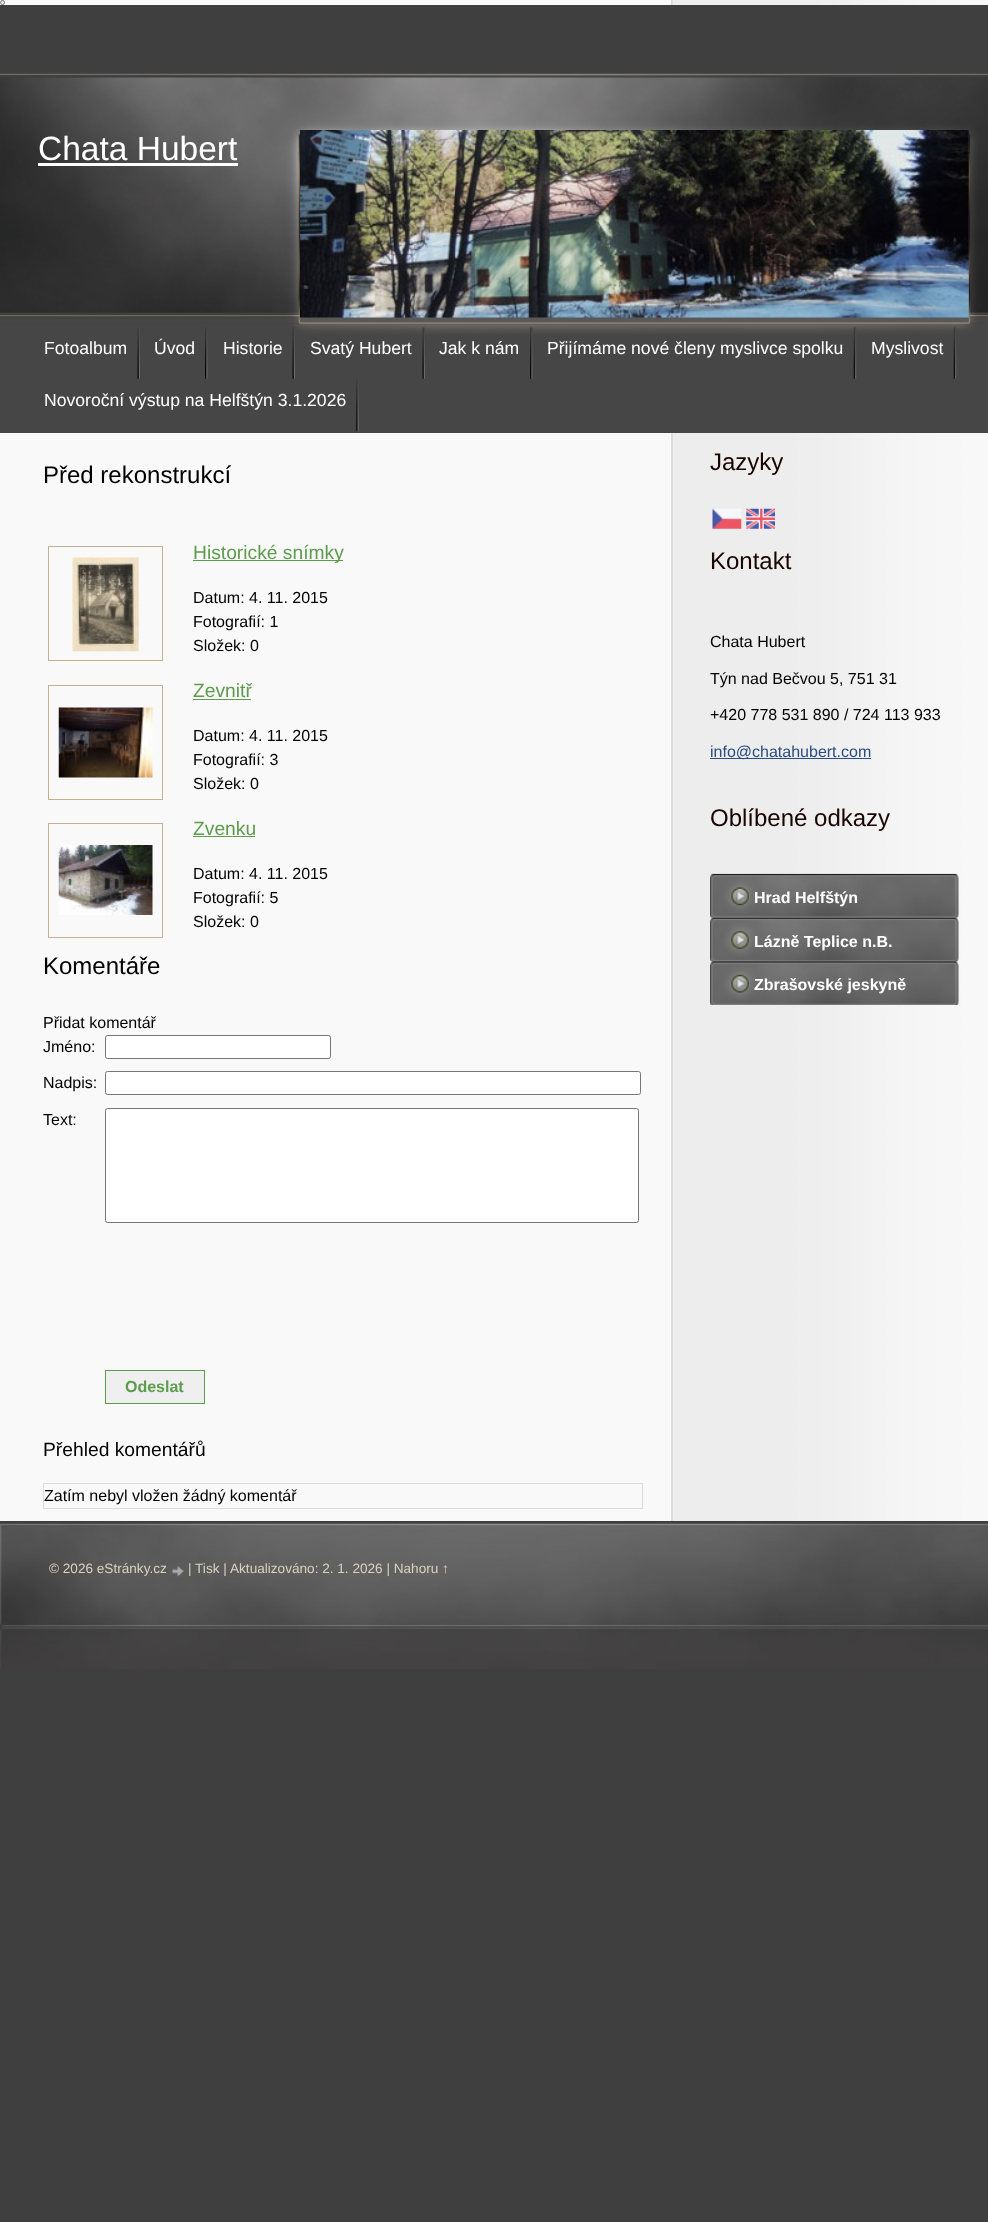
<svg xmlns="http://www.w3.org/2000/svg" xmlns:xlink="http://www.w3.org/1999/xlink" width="988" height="2222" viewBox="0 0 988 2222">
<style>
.cls-1{font:33.5px Liberation Sans;fill:#ffffff}
.cls-2{font:17.6px Liberation Sans;fill:#ffffff}
.cls-3{font:24px Liberation Sans;fill:#000000}
.cls-4{font:19.25px Liberation Sans;fill:#5c9c4b}
.cls-5{font:16px Liberation Sans;fill:#000000}
.cls-6{font:bold 16px Liberation Sans;fill:#5c9c4b}
.cls-7{font:19.25px Liberation Sans;fill:#000000}
.cls-8{font:24px Liberation Sans;fill:#180400}
.cls-9{font:16px Liberation Sans;fill:#294c81}
.cls-10{font:bold 16px Liberation Sans;fill:#ffffff}
.cls-11{font:13.6px Liberation Sans;fill:#dad2bd}
</style>
<rect width="100%" height="100%" fill="#403f3f"/>
<image xlink:href="image0.png" x="0" y="0" width="988" height="1521"/>
<circle fill="#efefef" stroke="#767676" cx="2.5" cy="2.5" r="2"/>
<rect fill="#403f3f" x="0" y="5" width="988" height="319"/>
<image xlink:href="image1.png" x="0" y="73" width="988" height="251"/>
<rect fill="#ffffff" x="38" y="163" width="200" height="3"/>
<image xlink:href="image2.png" x="300" y="130" width="669" height="188"/>
<rect fill="#474646" x="0" y="334" width="988" height="99"/>
<image xlink:href="image3.png" x="0" y="324" width="988" height="10"/>
<image xlink:href="image4.png" x="137" y="328" width="3" height="51"/>
<image xlink:href="image5.png" x="205" y="327" width="3" height="52"/>
<image xlink:href="image6.png" x="292" y="327" width="3" height="52"/>
<image xlink:href="image7.png" x="422" y="327" width="3" height="52"/>
<image xlink:href="image8.png" x="530" y="327" width="3" height="52"/>
<image xlink:href="image9.png" x="853" y="327" width="4" height="52"/>
<image xlink:href="image10.png" x="953" y="327" width="4" height="52"/>
<image xlink:href="image11.png" x="356" y="380" width="3" height="52"/>
<rect fill="none" stroke="#c2b294" x="48.5" y="546.5" width="114" height="114"/>
<image xlink:href="image12.png" x="72" y="557" width="67" height="95"/>
<rect fill="#5c9c4b" x="193" y="560" width="150" height="1"/>
<rect fill="none" stroke="#c2b294" x="48.5" y="685.5" width="114" height="114"/>
<image xlink:href="image13.png" x="58" y="707" width="95" height="71"/>
<rect fill="#5c9c4b" x="193" y="699" width="58" height="1"/>
<rect fill="none" stroke="#c2b294" x="48.5" y="823.5" width="114" height="114"/>
<image xlink:href="image14.png" x="58" y="845" width="95" height="70"/>
<rect fill="#5c9c4b" x="193" y="836" width="62" height="1"/>
<rect fill="#ffffff" stroke="#767676" x="105.5" y="1035.5" width="225" height="23" rx="2"/>
<rect fill="#ffffff" stroke="#767676" x="105.5" y="1071.5" width="535" height="23" rx="2"/>
<rect fill="#ffffff" stroke="#767676" x="105.5" y="1108.5" width="533" height="114" rx="2"/>
<rect fill="#efefef" stroke="#5c9c4b" x="105.5" y="1370.5" width="99" height="33"/>
<rect fill="none" stroke="#dddddd" x="43.5" y="1483.5" width="599" height="25"/>
<image xlink:href="image15.png" x="712" y="508" width="30" height="21"/>
<image xlink:href="image16.png" x="746" y="508" width="29" height="21"/>
<rect fill="#294c81" x="710" y="758" width="161" height="1"/>
<image xlink:href="image17.png" x="710" y="873" width="249" height="45"/>
<image xlink:href="image18.png" x="710" y="917" width="249" height="45"/>
<image xlink:href="image19.png" x="710" y="961" width="249" height="44"/>
<image xlink:href="image20.png" x="0" y="1523" width="988" height="146"/>
<image xlink:href="image21.png" x="172" y="1566" width="12" height="11"/>
<text class="cls-1" x="38" y="160">Chata Hubert</text>
<text class="cls-2" x="44" y="354">Fotoalbum</text>
<text class="cls-2" x="154" y="354">Úvod</text>
<text class="cls-2" x="223" y="354">Historie</text>
<text class="cls-2" x="310" y="354">Svatý Hubert</text>
<text class="cls-2" x="439" y="354">Jak k nám</text>
<text class="cls-2" x="547" y="354">Přijímáme nové členy myslivce spolku</text>
<text class="cls-2" x="871" y="354">Myslivost</text>
<text class="cls-2" x="44" y="406">Novoroční výstup na Helfštýn 3.1.2026</text>
<text class="cls-3" x="43" y="483">Před rekonstrukcí</text>
<text class="cls-4" x="193" y="559">Historické snímky</text>
<text class="cls-5"><tspan x="193" y="603">Datum: 4. 11. 2015</tspan><tspan x="193" y="627">Fotografií: 1</tspan><tspan x="193" y="651">Složek: 0</tspan></text>
<text class="cls-4" x="193" y="697">Zevnitř</text>
<text class="cls-5"><tspan x="193" y="741">Datum: 4. 11. 2015</tspan><tspan x="193" y="765">Fotografií: 3</tspan><tspan x="193" y="789">Složek: 0</tspan></text>
<text class="cls-4" x="193" y="835">Zvenku</text>
<text class="cls-5"><tspan x="193" y="879">Datum: 4. 11. 2015</tspan><tspan x="193" y="903">Fotografií: 5</tspan><tspan x="193" y="927">Složek: 0</tspan></text>
<text class="cls-3" x="43" y="974">Komentáře</text>
<text class="cls-5"><tspan x="43" y="1028">Přidat komentář</tspan><tspan x="43" y="1052">Jméno:</tspan></text>
<text class="cls-5" x="43" y="1088">Nadpis:</text>
<text class="cls-5" x="43" y="1125">Text:</text>
<text class="cls-6" x="125" y="1392">Odeslat</text>
<text class="cls-7" x="43" y="1456">Přehled komentářů</text>
<text class="cls-5" x="44" y="1501">Zatím nebyl vložen žádný komentář</text>
<text class="cls-8" x="710" y="470">Jazyky</text>
<text class="cls-8" x="710" y="569">Kontakt</text>
<text class="cls-5" x="710" y="647">Chata Hubert</text>
<text class="cls-5" x="710" y="684">Týn nad Bečvou 5, 751 31</text>
<text class="cls-5" x="710" y="720">+420 778 531 890 / 724 113 933</text>
<text class="cls-9" x="710" y="757">info@chatahubert.com</text>
<text class="cls-8" x="710" y="826">Oblíbené odkazy</text>
<text class="cls-10" x="754" y="903">Hrad Helfštýn</text>
<text class="cls-10" x="754" y="947">Lázně Teplice n.B.</text>
<text class="cls-10" x="754" y="990">Zbrašovské jeskyně</text>
<text class="cls-11" x="49" y="1573">© 2026 eStránky.cz</text>
<text class="cls-11" x="188" y="1573">| Tisk |</text>
<text class="cls-11" x="230" y="1573">Aktualizováno: 2. 1. 2026 | Nahoru ↑</text>
</svg>
